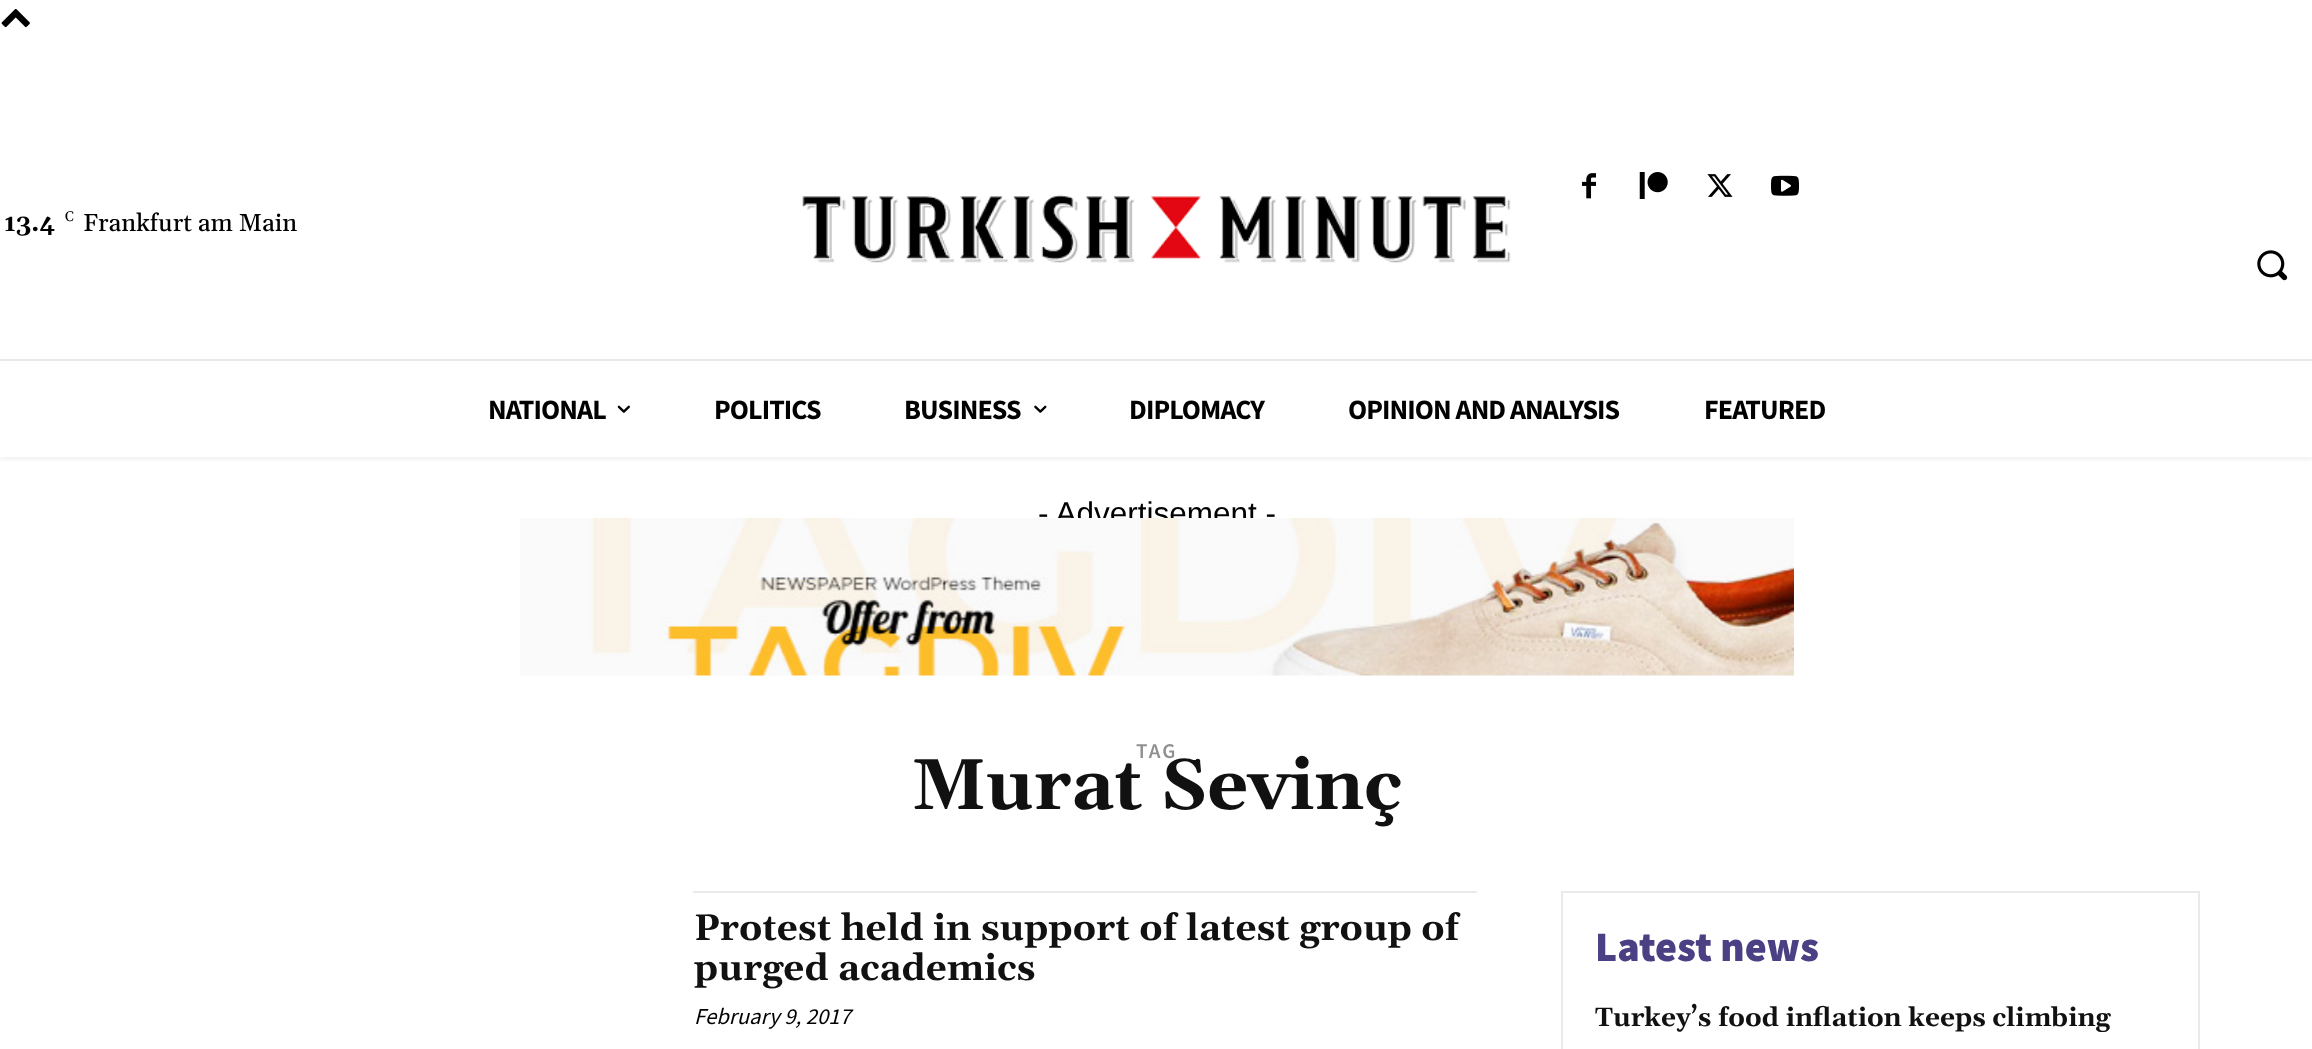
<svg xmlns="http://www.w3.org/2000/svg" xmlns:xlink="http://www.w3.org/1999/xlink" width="2312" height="1049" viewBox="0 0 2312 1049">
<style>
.cls-1{font:bold 24.5px Gelasio;fill:#000000}
.cls-2{font:14px Gelasio;fill:#000000}
.cls-3{font:500 24.5px Gelasio;fill:#000000}
.cls-4{font:bold 28px Source Sans Pro;letter-spacing:-0.9px;fill:#000000}
.cls-5{font:31.5px Liberation Sans;fill:#000000}
.cls-6{font:600 21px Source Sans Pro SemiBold;letter-spacing:2px;fill:#919191}
.cls-7{font:bold 71.75px Gelasio;fill:#111111}
.cls-8{font:bold 36.75px Gelasio;fill:#111111}
.cls-9{font:italic 22.75px Source Sans Pro;fill:#000000}
.cls-10{font:900 42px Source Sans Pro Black;fill:#4c4084}
.cls-11{font:bold 26.25px Gelasio;fill:#111111}
</style>
<defs>
<clipPath id="clip1"><rect x="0" y="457" width="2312" height="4"/></clipPath>
</defs>
<rect width="100%" height="100%" fill="#ffffff"/>
<image xlink:href="image0.png" x="1" y="9" width="29" height="19"/>
<image xlink:href="image1.png" x="802" y="194" width="709" height="69"/>
<image xlink:href="image2.png" x="1582" y="173" width="14" height="26"/>
<image xlink:href="image3.png" x="1639" y="172" width="29" height="27"/>
<image xlink:href="image4.png" x="1707" y="174" width="26" height="23"/>
<image xlink:href="image5.png" x="1771" y="175" width="28" height="21"/>
<image xlink:href="image6.png" x="2257" y="250" width="31" height="31"/>
<rect fill="#eaeaea" x="0" y="359" width="2312" height="2"/>
<image xlink:href="image7.png" x="617" y="405" width="13" height="8"/>
<image xlink:href="image8.png" x="1034" y="405" width="13" height="8"/>
<g clip-path="url(#clip1)">
<rect fill="#000000" fill-opacity="0.06" filter="blur(3.5px)" x="0" y="310" width="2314" height="150"/>
</g>
<rect fill="#eaeaea" x="693" y="891" width="784" height="2"/>
<rect fill="none" stroke="#eaeaea" stroke-width="2" x="1562" y="892" width="637" height="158"/>
<text class="cls-1" x="4" y="231">13.4</text>
<text class="cls-2" x="65" y="221">C</text>
<text class="cls-3" x="83" y="231">Frankfurt am Main</text>
<text class="cls-4" x="488" y="419">NATIONAL</text>
<text class="cls-4" x="714" y="419">POLITICS</text>
<text class="cls-4" x="904" y="419">BUSINESS</text>
<text class="cls-4" x="1129" y="419">DIPLOMACY</text>
<text class="cls-4" x="1348" y="419">OPINION AND ANALYSIS</text>
<text class="cls-4" x="1704" y="419">FEATURED</text>
<text class="cls-5" x="1038" y="524">- Advertisement -</text>
<image xlink:href="image9.png" x="520" y="518" width="1274" height="158"/>
<text class="cls-6" x="1136" y="758">TAG</text>
<text class="cls-7" x="912" y="809">Murat Sevinç</text>
<text class="cls-8"><tspan x="694" y="940">Protest held in support of latest group of</tspan><tspan x="694" y="980">purged academics</tspan></text>
<text class="cls-9" x="694" y="1024">February 9, 2017</text>
<text class="cls-10" x="1595" y="961">Latest news</text>
<text class="cls-11" x="1595" y="1026">Turkey’s food inflation keeps climbing</text>
</svg>
